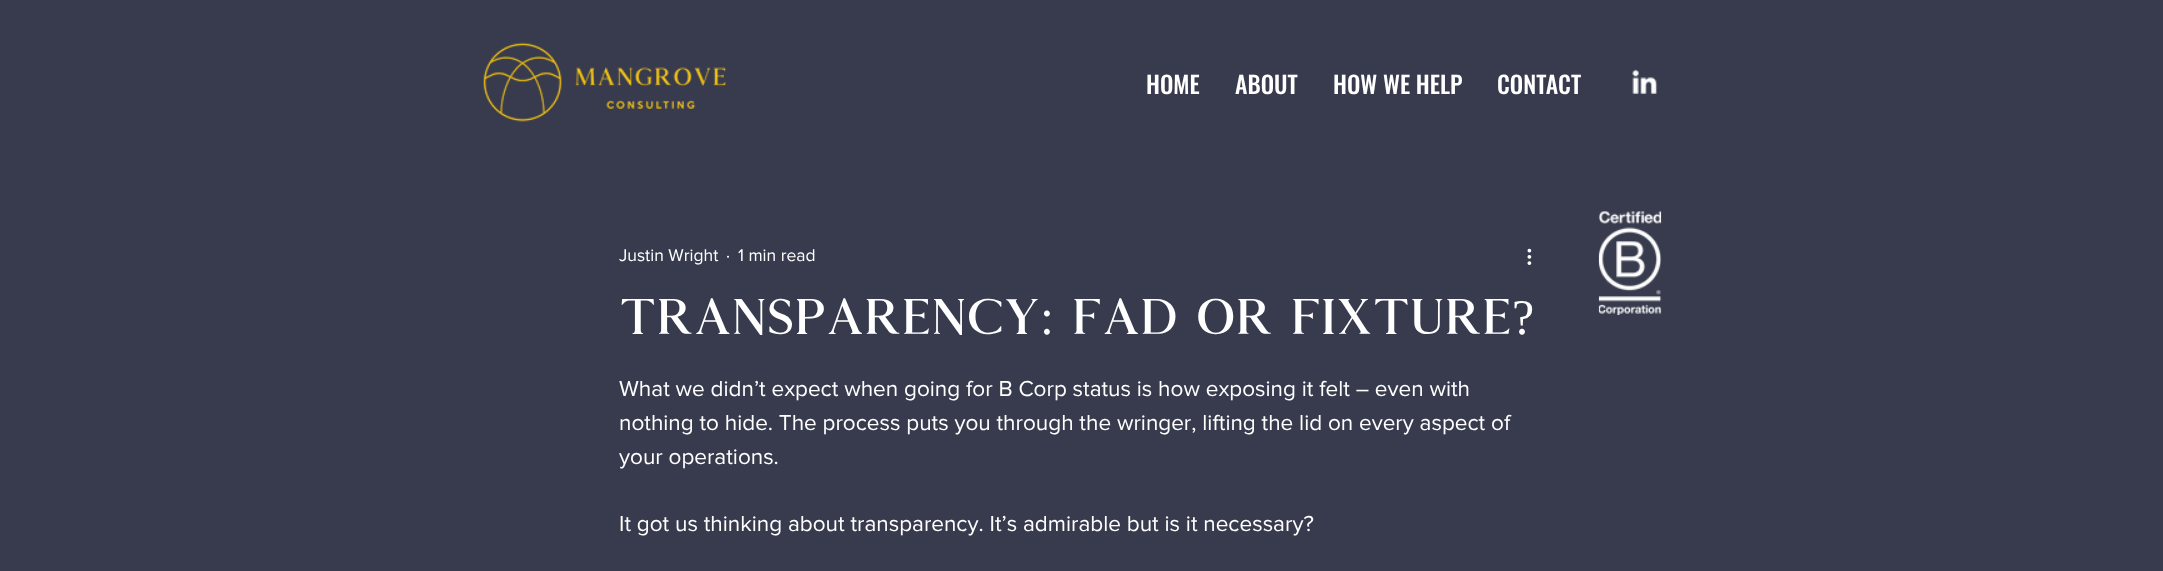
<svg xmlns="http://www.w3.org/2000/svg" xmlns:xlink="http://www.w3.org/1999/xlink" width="2163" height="571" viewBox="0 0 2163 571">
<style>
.cls-1{font:500 23.75px Oswald;fill:#ffffff}
.cls-2{font:17.5px 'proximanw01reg';fill:#ffffff}
.cls-3{font:50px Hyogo;fill:#ffffff}
.cls-4{font:50px Liberation Serif;fill:#ffffff}
.cls-5{font:22.5px 'proximanw01reg';fill:#ffffff}
</style>
<rect width="100%" height="100%" fill="#373b4d"/>
<image xlink:href="image0.png" x="483" y="42" width="79" height="80"/>
<image xlink:href="image1.png" x="575" y="67" width="151" height="42"/>
<image xlink:href="image2.png" x="1632" y="69" width="26" height="25"/>
<image xlink:href="image3.png" x="1527" y="248" width="5" height="17"/>
<image xlink:href="image4.png" x="1598" y="211" width="64" height="104"/>
<text class="cls-1" x="1146" y="94">HOME</text>
<text class="cls-1" x="1235" y="94">ABOUT</text>
<text class="cls-1" x="1333" y="94">HOW WE HELP</text>
<text class="cls-1" x="1497" y="94">CONTACT</text>
<text class="cls-2" x="619" y="261">Justin Wright</text>
<text class="cls-2" x="726" y="261">·</text>
<text class="cls-2" x="738" y="261">1 min read</text>
<text class="cls-3" x="619" y="334">Transparency</text>
<text class="cls-4" x="1040" y="334">:</text>
<text class="cls-3" x="1072" y="334">Fad or Fixture</text>
<text class="cls-4" x="1512" y="334">?</text>
<text class="cls-5"><tspan x="619" y="396">What we didn’t expect when going for B Corp status is how exposing it felt – even with</tspan><tspan x="619" y="430">nothing to hide. The process puts you through the wringer, lifting the lid on every aspect of</tspan><tspan x="619" y="464">your operations.</tspan></text>
<text class="cls-5" x="619" y="531">It got us thinking about transparency. It’s admirable but is it necessary?</text>
</svg>
